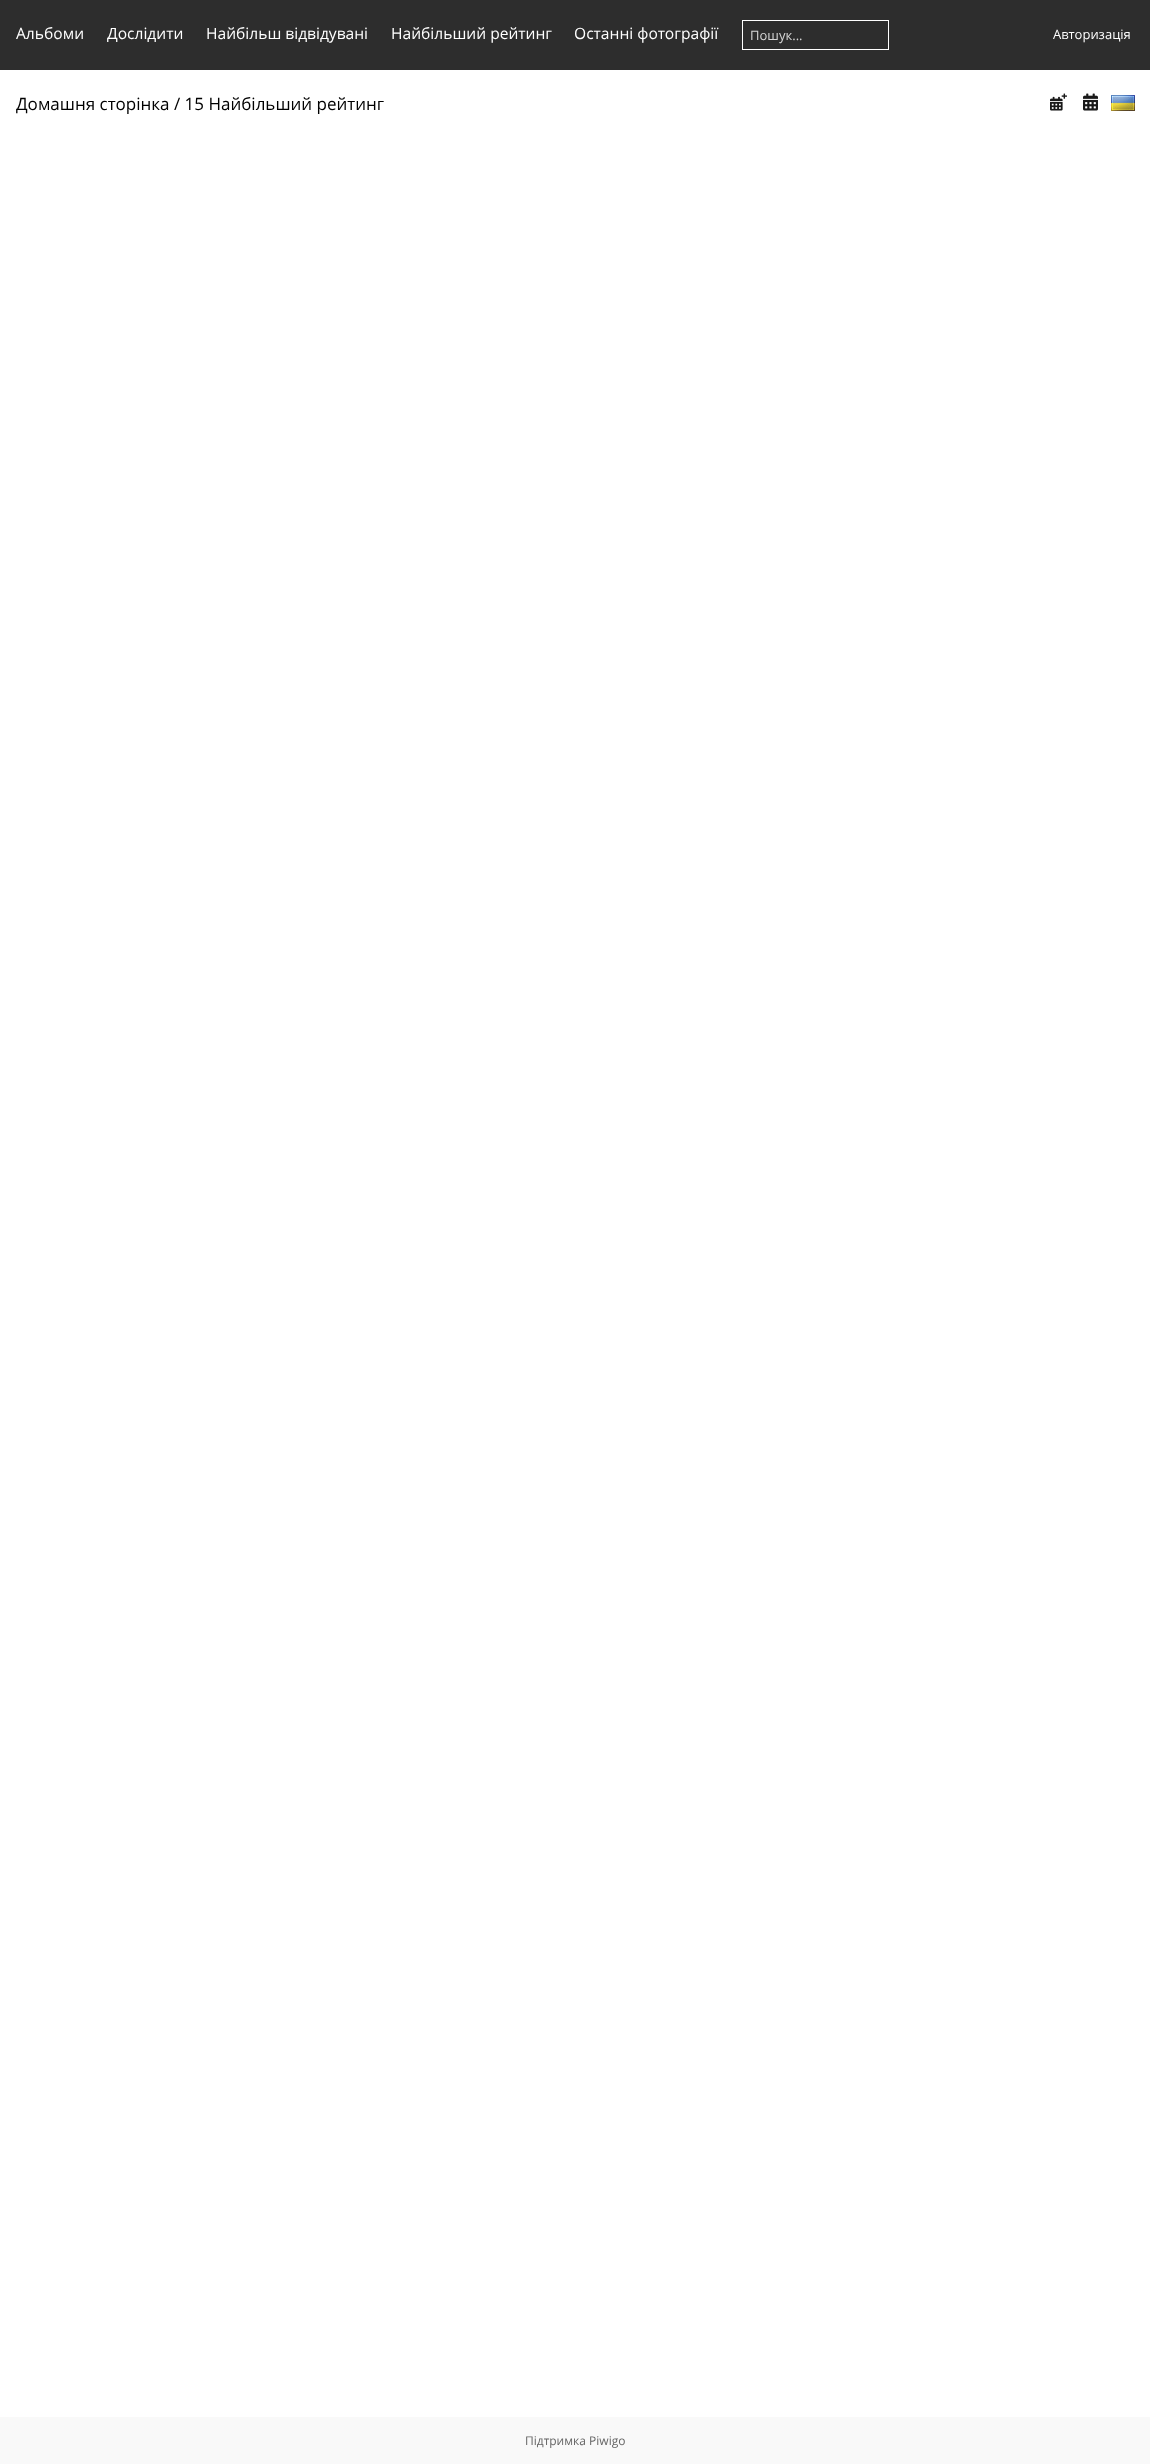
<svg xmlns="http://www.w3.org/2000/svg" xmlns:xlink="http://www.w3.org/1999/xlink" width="1150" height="2464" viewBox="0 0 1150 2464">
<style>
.cls-1{font:15.6px Open Sans;fill:#ffffff}
.cls-2{font:13px Open Sans;fill:#d6d6d6}
.cls-3{font:13px Open Sans;fill:#ffffff}
.cls-4{font:17px Open Sans;fill:#000000}
.cls-5{font:12px Open Sans;fill:#666666}
</style>
<rect width="100%" height="100%" fill="#ffffff"/>
<rect fill="#2d2d2d" x="0" y="0" width="1150" height="70"/>
<rect fill="none" stroke="#ffffff" x="742.5" y="20.5" width="146" height="29"/>
<image xlink:href="image0.png" x="1050" y="93" width="17" height="18"/>
<image xlink:href="image1.png" x="1083" y="93" width="15" height="18"/>
<image xlink:href="image2.png" x="1111" y="95" width="24" height="16"/>
<rect fill="#f9f9f9" x="0" y="2417" width="1150" height="47"/>
<text class="cls-1" x="16" y="39">Альбоми</text>
<text class="cls-1" x="107" y="39">Дослідити</text>
<text class="cls-1" x="206" y="39">Найбільш відвідувані</text>
<text class="cls-1" x="391" y="39">Найбільший рейтинг</text>
<text class="cls-1" x="574" y="39">Останні фотографії</text>
<text class="cls-2" x="750" y="40">Пошук...</text>
<text class="cls-3" x="1053" y="39">Авторизація</text>
<text class="cls-4" x="16" y="110">Домашня сторінка / 15 Найбільший рейтинг</text>
<text class="cls-5" x="525" y="2445">Підтримка Piwigo</text>
</svg>
